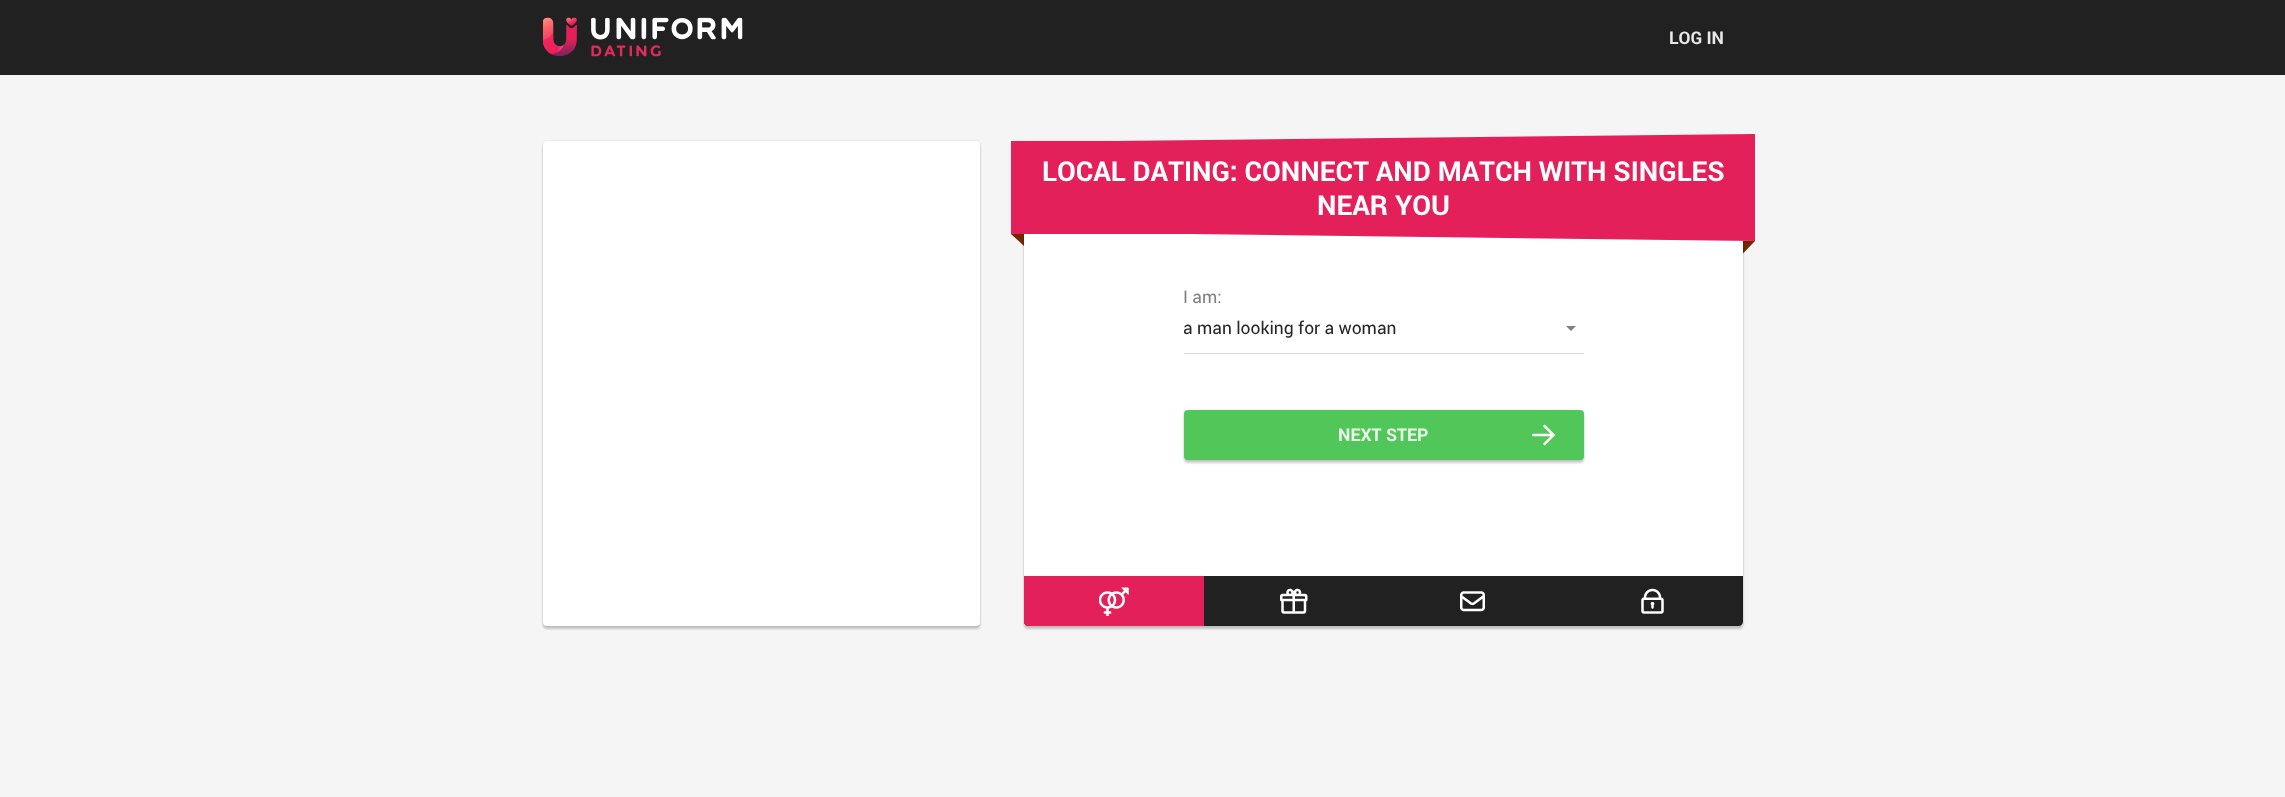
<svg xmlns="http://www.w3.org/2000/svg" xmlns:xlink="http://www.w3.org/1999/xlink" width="2285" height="797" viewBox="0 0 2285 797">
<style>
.cls-1{font:bold 17.5px Roboto;fill:#e9e9e9}
.cls-2{font:bold 27.5px Roboto;fill:#ffffff}
.cls-3{font:17.5px Roboto;fill:#808080}
.cls-4{font:17.5px Roboto;fill:#262626}
.cls-5{font:bold 17.5px Roboto;fill:#eef9ee}
</style>
<rect width="100%" height="100%" fill="#f5f5f5"/>
<rect fill="#212121" x="0" y="0" width="2285" height="75"/>
<image xlink:href="image0.png" x="543" y="17" width="200" height="40"/>
<rect fill="#000000" fill-opacity="0.2" filter="blur(1px)" x="543" y="144" width="437" height="485" rx="4"/>
<rect fill="#000000" fill-opacity="0.1" filter="blur(1px)" x="543" y="141" width="437" height="485" rx="4"/>
<rect fill="#ffffff" x="543" y="141" width="437" height="485" rx="4"/>
<path fill="#752800" d="M1011 234H1024V246Z"/>
<path fill="#752800" d="M1742.5 241H1755L1742.5 254Z"/>
<rect fill="#000000" fill-opacity="0.2" filter="blur(1px)" x="1024" y="144" width="719" height="485" rx="4"/>
<rect fill="#000000" fill-opacity="0.1" filter="blur(1px)" x="1024" y="141" width="719" height="485" rx="4"/>
<rect fill="#ffffff" x="1024" y="141" width="719" height="485" rx="4"/>
<rect fill="#e4205b" x="1011" y="141" width="744" height="93"/>
<path fill="#e4205b" d="M1755 142H1030L1755 134Z"/>
<path fill="#e4205b" d="M1030 232H1755V241Z"/>
<rect fill="#d9d9d9" x="1184" y="353" width="400" height="1"/>
<path fill="#808080" d="M1566 326H1576L1571 331Z"/>
<rect fill="#000000" fill-opacity="0.2" filter="blur(1px)" x="1184" y="413" width="400" height="50" rx="4"/>
<rect fill="#000000" fill-opacity="0.1" filter="blur(1px)" x="1184" y="410" width="400" height="50" rx="4"/>
<rect fill="#51c659" x="1184" y="410" width="400" height="50" rx="4"/>
<image xlink:href="image1.png" x="1532" y="424" width="23" height="22"/>
<path fill="#212121" d="M1024 576H1743V622C1743 624 1741 626 1739 626H1028C1026 626 1024 624 1024 622Z"/>
<path fill="#e4205b" d="M1024 576H1204V626H1028C1026 626 1024 624 1024 622Z"/>
<image xlink:href="image2.png" x="1099" y="587" width="30" height="29"/>
<image xlink:href="image3.png" x="1280" y="588" width="28" height="26"/>
<image xlink:href="image4.png" x="1460" y="591" width="25" height="21"/>
<image xlink:href="image5.png" x="1641" y="588" width="23" height="26"/>
<text class="cls-1" x="1669" y="44">LOG IN</text>
<text class="cls-2" x="1042" y="181">LOCAL DATING: CONNECT AND MATCH WITH SINGLES</text>
<text class="cls-2" x="1317" y="215">NEAR YOU</text>
<text class="cls-3" x="1183" y="303">I am:</text>
<text class="cls-4" x="1183" y="334">a man looking for a woman</text>
<text class="cls-5" x="1338" y="441">NEXT STEP</text>
</svg>
